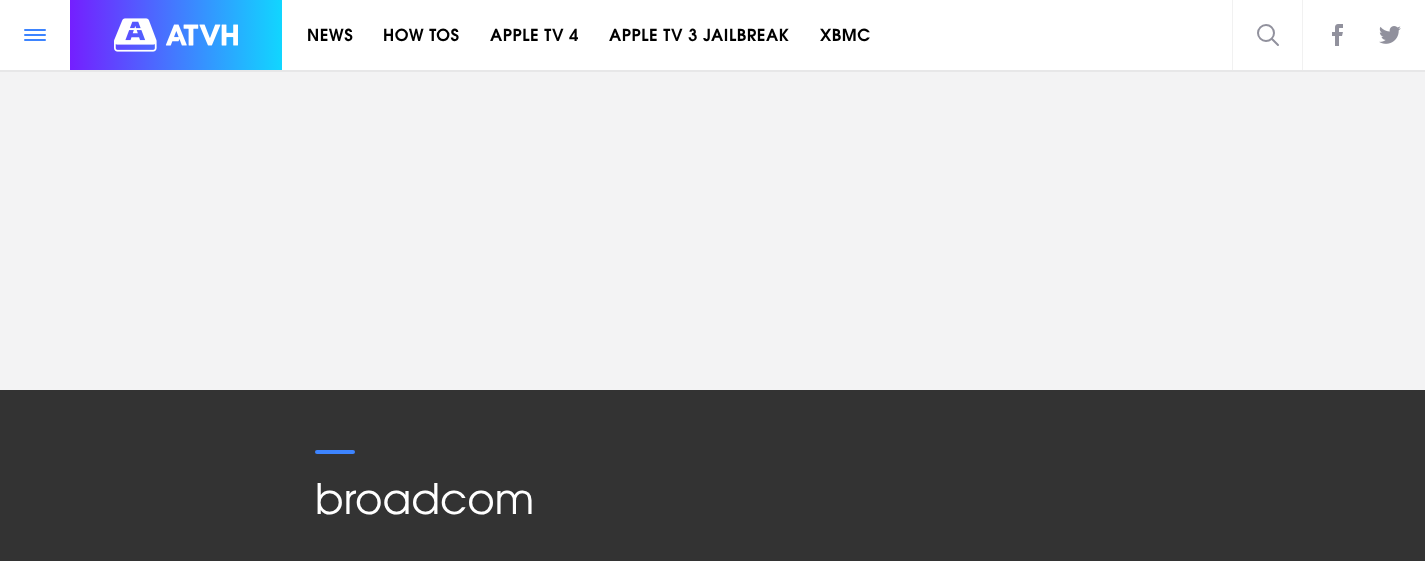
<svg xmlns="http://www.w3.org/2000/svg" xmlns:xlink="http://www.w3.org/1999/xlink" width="1425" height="561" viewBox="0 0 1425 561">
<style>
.cls-1{font:bold 16.5px TeX Gyre Adventor;letter-spacing:0.5px;fill:#000000}
.cls-2{font:42px TeX Gyre Adventor;fill:#ffffff}
</style>
<defs>
<linearGradient id="g1" gradientUnits="userSpaceOnUse" x1="70" y1="35" x2="282" y2="35"><stop offset="0" stop-color="#741fff"/><stop offset="1" stop-color="#11d6ff"/></linearGradient>
</defs>
<rect width="100%" height="100%" fill="#f3f3f4"/>
<rect fill="#e7e7e8" x="0" y="70" width="1425" height="2"/>
<rect fill="#ffffff" x="0" y="0" width="1425" height="70"/>
<rect fill="#3d84ff" x="24" y="29" width="22" height="2" rx="1"/>
<rect fill="#3d84ff" x="24" y="34" width="22" height="2" rx="1"/>
<rect fill="#3d84ff" x="24" y="39" width="22" height="2" rx="1"/>
<rect fill="url(#g1)" x="70" y="0" width="212" height="70"/>
<image xlink:href="image0.png" x="114" y="18" width="124" height="34"/>
<rect fill="#f1f1f1" x="1232" y="0" width="1" height="70"/>
<circle fill="none" stroke="#91919d" stroke-width="2" cx="1266" cy="33" r="8"/>
<path fill="none" stroke="#91919d" stroke-width="2" stroke-linecap="round" stroke-linejoin="round" d="M1278 45L1272 39"/>
<rect fill="#f1f1f1" x="1302" y="0" width="1" height="70"/>
<image xlink:href="image1.png" x="1332" y="24" width="11" height="22"/>
<image xlink:href="image2.png" x="1379" y="26" width="22" height="18"/>
<rect fill="#333333" x="0" y="390" width="1425" height="171"/>
<rect fill="#3d84ff" x="315" y="450" width="40" height="4" rx="2"/>
<text class="cls-1" x="307" y="41">NEWS</text>
<text class="cls-1" x="383" y="41">HOW TOS</text>
<text class="cls-1" x="490" y="41">APPLE TV 4</text>
<text class="cls-1" x="609" y="41">APPLE TV 3 JAILBREAK</text>
<text class="cls-1" x="820" y="41">XBMC</text>
<text class="cls-2" x="315" y="514">broadcom</text>
</svg>
